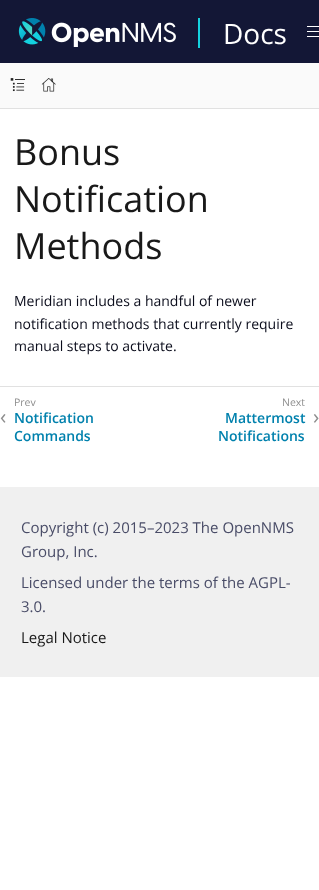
<svg xmlns="http://www.w3.org/2000/svg" xmlns:xlink="http://www.w3.org/1999/xlink" width="319" height="890" viewBox="0 0 319 890">
<style>
.cls-1{font:28px Open Sans;fill:#ffffff}
.cls-2{font:36px Open Sans;fill:#191919}
.cls-3{font:14px Open Sans;fill:#0a0c1b}
.cls-4{font:10.5px Open Sans;fill:#8e8e8e}
.cls-5{font:21px Open Sans;fill:#8e8e8e}
.cls-6{font:600 14px Open Sans;fill:#0081ad}
.cls-7{font:15px Open Sans;fill:#494c67}
.cls-8{font:15px Open Sans;fill:#191919}
</style>
<rect width="100%" height="100%" fill="#ffffff"/>
<rect fill="#131736" x="0" y="0" width="319" height="63"/>
<image xlink:href="image0.png" x="18" y="18" width="158" height="29"/>
<rect fill="#14d1df" x="198" y="18" width="2" height="30"/>
<rect fill="#ffffff" x="307" y="26" width="12" height="1"/>
<rect fill="#ffffff" x="307" y="31" width="12" height="1"/>
<rect fill="#ffffff" x="307" y="36" width="12" height="1"/>
<rect fill="#e1e1e1" x="0" y="108" width="319" height="1"/>
<rect fill="#fafafa" x="0" y="63" width="319" height="45"/>
<image xlink:href="image1.png" x="10" y="78" width="15" height="14"/>
<image xlink:href="image2.png" x="41" y="78" width="15" height="14"/>
<rect fill="#e1e1e1" x="0" y="386" width="319" height="1"/>
<rect fill="#f0f0f0" x="0" y="487" width="319" height="190"/>
<text class="cls-1" x="223" y="44">Docs</text>
<text class="cls-2"><tspan x="14" y="165">Bonus</tspan><tspan x="14" y="212">Notification</tspan><tspan x="14" y="259">Methods</tspan></text>
<text class="cls-3"><tspan x="14" y="306">Meridian includes a handful of newer</tspan><tspan x="14" y="329">notification methods that currently require</tspan><tspan x="14" y="351">manual steps to activate.</tspan></text>
<text class="cls-4" x="14" y="406">Prev</text>
<text class="cls-5" x="0" y="424">‹</text>
<text class="cls-6"><tspan x="14" y="423">Notification</tspan><tspan x="14" y="441">Commands</tspan></text>
<text class="cls-4" x="282" y="406">Next</text>
<text class="cls-6" x="225" y="423">Mattermost</text>
<text class="cls-5" x="313" y="424">›</text>
<text class="cls-6" x="218" y="441">Notifications</text>
<text class="cls-7"><tspan x="21" y="533">Copyright (c) 2015–2023 The OpenNMS</tspan><tspan x="21" y="557">Group, Inc.</tspan></text>
<text class="cls-7"><tspan x="21" y="588">Licensed under the terms of the AGPL-</tspan><tspan x="21" y="612">3.0.</tspan></text>
<text class="cls-8" x="21" y="643">Legal Notice</text>
</svg>
